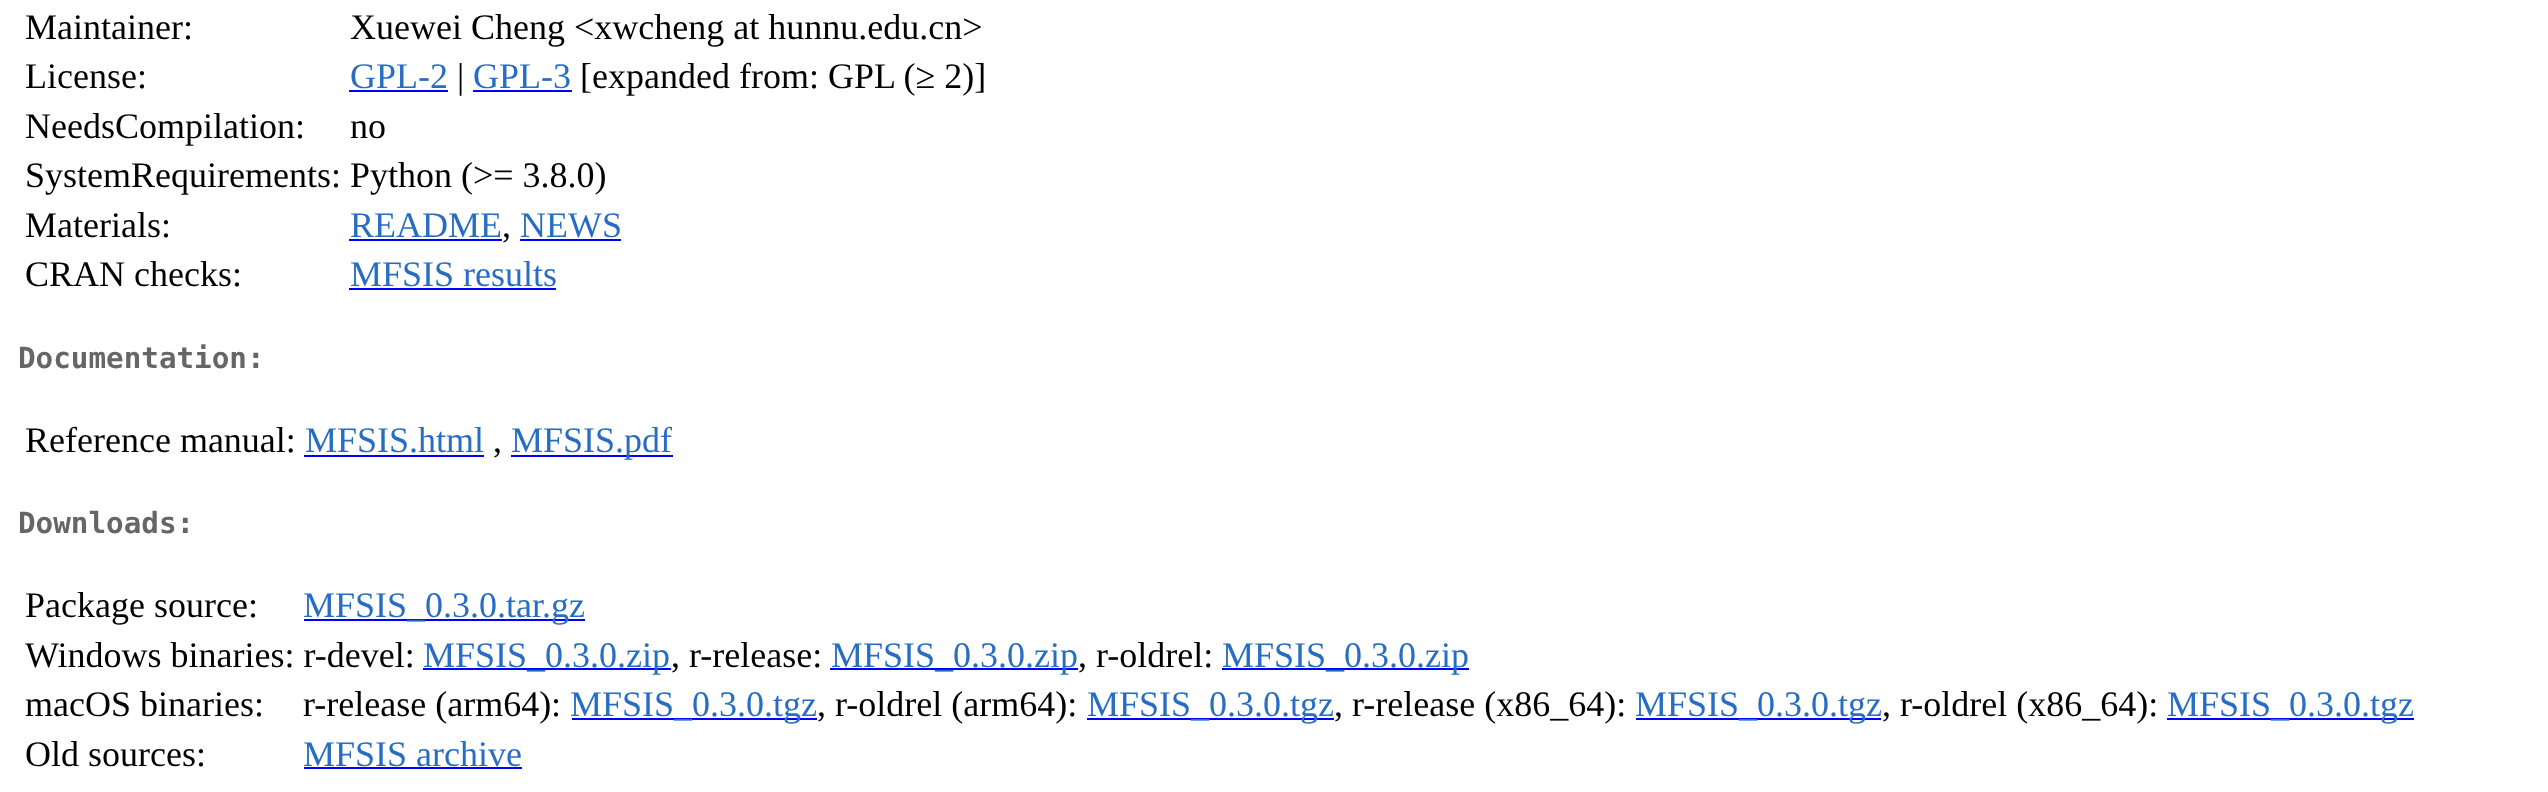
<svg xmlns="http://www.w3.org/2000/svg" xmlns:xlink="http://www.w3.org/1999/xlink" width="2548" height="792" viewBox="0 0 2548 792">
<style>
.cls-1{font:36px Liberation Serif;fill:#000000}
.cls-2{font:36px Liberation Serif;fill:#276dc3}
.cls-3{font:bold 29.25px DejaVu Sans Mono;fill:#666666}
</style>
<rect width="100%" height="100%" fill="#ffffff"/>
<rect fill="#0000ff" x="349" y="90" width="99" height="2"/>
<rect fill="#0000ff" x="473" y="90" width="99" height="2"/>
<rect fill="#0000ff" x="349" y="239" width="153" height="2"/>
<rect fill="#0000ff" x="520" y="239" width="101" height="2"/>
<rect fill="#0000ff" x="349" y="288" width="207" height="2"/>
<rect fill="#0000ff" x="304" y="455" width="180" height="2"/>
<rect fill="#0000ff" x="511" y="455" width="162" height="2"/>
<rect fill="#0000ff" x="304" y="619" width="281" height="2"/>
<rect fill="#0000ff" x="423" y="668" width="248" height="2"/>
<rect fill="#0000ff" x="830" y="668" width="248" height="2"/>
<rect fill="#0000ff" x="1222" y="668" width="247" height="2"/>
<rect fill="#0000ff" x="572" y="718" width="245" height="2"/>
<rect fill="#0000ff" x="1087" y="718" width="247" height="2"/>
<rect fill="#0000ff" x="1636" y="718" width="245" height="2"/>
<rect fill="#0000ff" x="2167" y="718" width="247" height="2"/>
<rect fill="#0000ff" x="304" y="767" width="218" height="2"/>
<text class="cls-1" x="25" y="39">Maintainer:</text>
<text class="cls-1" x="350" y="39">Xuewei Cheng &lt;xwcheng at hunnu.edu.cn&gt;</text>
<text class="cls-1" x="25" y="88">License:</text>
<text class="cls-2" x="350" y="88">GPL-2</text>
<text class="cls-1" x="457" y="88">|</text>
<text class="cls-2" x="473" y="88">GPL-3</text>
<text class="cls-1" x="580" y="88">[expanded from: GPL (≥ 2)]</text>
<text class="cls-1" x="25" y="138">NeedsCompilation:</text>
<text class="cls-1" x="350" y="138">no</text>
<text class="cls-1"><tspan x="25" y="187">SystemRequirements: Python (&gt;= 3.8.0)</tspan><tspan x="25" y="237">Materials:</tspan></text>
<text class="cls-2" x="350" y="237">README</text>
<text class="cls-1" x="502" y="237">,</text>
<text class="cls-2" x="520" y="237">NEWS</text>
<text class="cls-1" x="25" y="286">CRAN checks:</text>
<text class="cls-2" x="350" y="286">MFSIS results</text>
<text class="cls-3" x="18" y="368">Documentation:</text>
<text class="cls-1" x="25" y="452">Reference manual:</text>
<text class="cls-2" x="305" y="452">MFSIS.html</text>
<text class="cls-1" x="493" y="452">,</text>
<text class="cls-2" x="511" y="452">MFSIS.pdf</text>
<text class="cls-3" x="18" y="533">Downloads:</text>
<text class="cls-1" x="25" y="617">Package source:</text>
<text class="cls-2" x="303" y="617">MFSIS_0.3.0.tar.gz</text>
<text class="cls-1" x="25" y="667">Windows binaries: r-devel:</text>
<text class="cls-2" x="423" y="667">MFSIS_0.3.0.zip</text>
<text class="cls-1" x="671" y="667">, r-release:</text>
<text class="cls-2" x="831" y="667">MFSIS_0.3.0.zip</text>
<text class="cls-1" x="1078" y="667">, r-oldrel:</text>
<text class="cls-2" x="1222" y="667">MFSIS_0.3.0.zip</text>
<text class="cls-1" x="25" y="716">macOS binaries:</text>
<text class="cls-1" x="303" y="716">r-release (arm64):</text>
<text class="cls-2" x="570" y="716">MFSIS_0.3.0.tgz</text>
<text class="cls-1" x="817" y="716">, r-oldrel (arm64):</text>
<text class="cls-2" x="1087" y="716">MFSIS_0.3.0.tgz</text>
<text class="cls-1" x="1334" y="716">, r-release (x86_64):</text>
<text class="cls-2" x="1635" y="716">MFSIS_0.3.0.tgz</text>
<text class="cls-1" x="1882" y="716">, r-oldrel (x86_64):</text>
<text class="cls-2" x="2167" y="716">MFSIS_0.3.0.tgz</text>
<text class="cls-1" x="25" y="766">Old sources:</text>
<text class="cls-2" x="303" y="766">MFSIS archive</text>
</svg>
